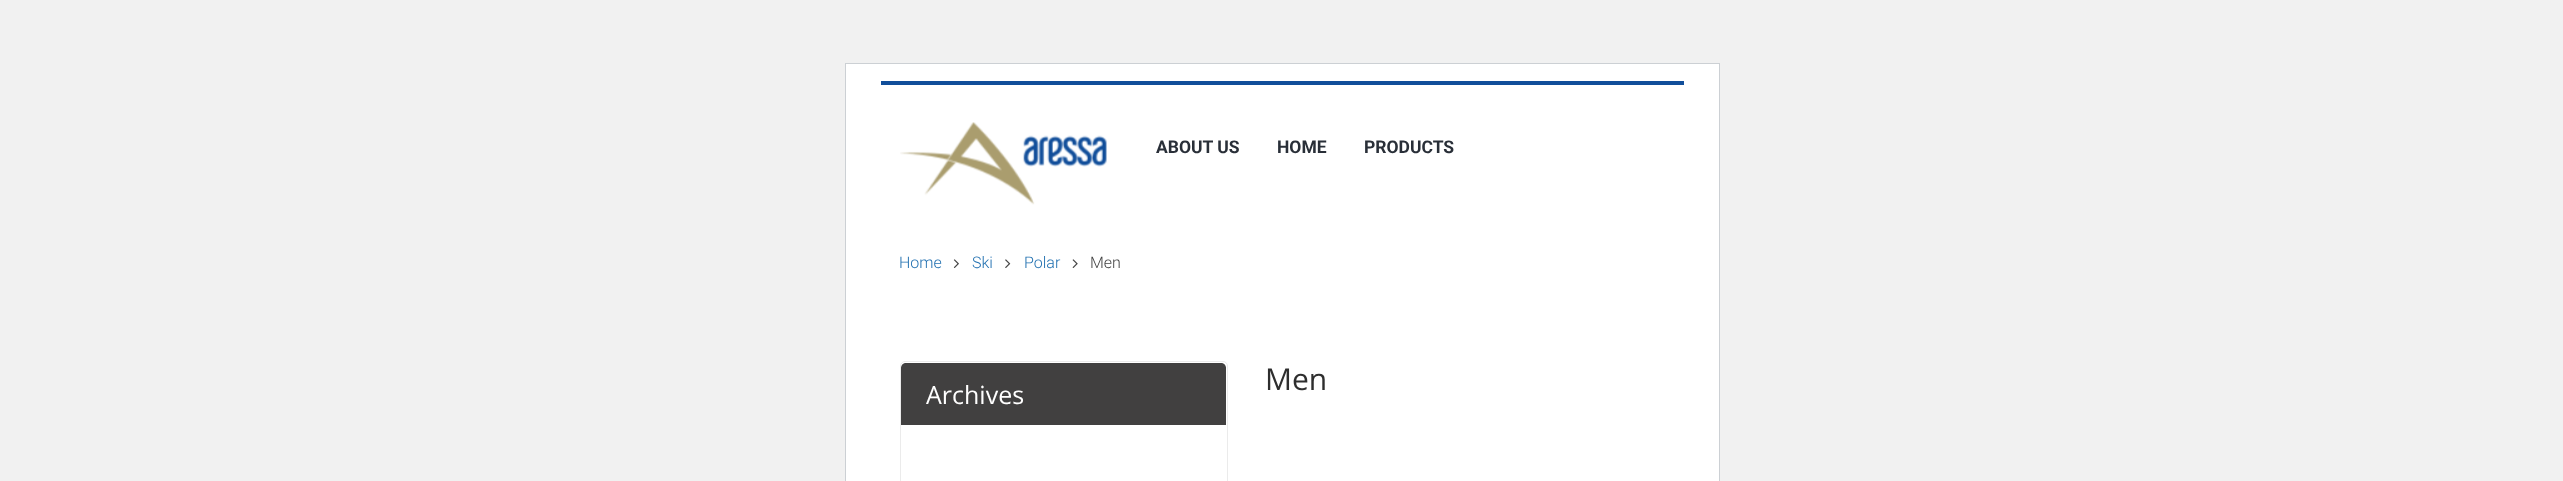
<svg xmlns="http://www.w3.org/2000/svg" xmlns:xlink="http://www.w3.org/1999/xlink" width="2563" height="481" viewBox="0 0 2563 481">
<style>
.cls-1{font:bold 17.5px Roboto;fill:#292f38}
.cls-2{font:300 16px Roboto;fill:#2271b1}
.cls-3{font:300 16px Roboto;fill:#444444}
.cls-4{font:30px Open Sans;fill:#2e2e2e}
.cls-5{font:25px Open Sans;fill:#ffffff}
</style>
<defs>
<clipPath id="clip1"><rect x="901" y="363" width="325" height="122" rx="4"/></clipPath>
</defs>
<rect width="100%" height="100%" fill="#f1f1f1"/>
<rect fill="#ffffff" stroke="#ccd0d4" x="845.5" y="63.5" width="874" height="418"/>
<rect fill="#114e9a" x="881" y="81" width="803" height="4"/>
<image xlink:href="image0.png" x="900" y="122" width="207" height="83"/>
<image xlink:href="image1.png" x="953" y="259" width="6" height="9"/>
<image xlink:href="image2.png" x="1005" y="259" width="6" height="9"/>
<image xlink:href="image3.png" x="1072" y="259" width="6" height="9"/>
<rect fill="none" stroke="#ebebeb" x="900.5" y="361.5" width="327" height="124" rx="4.5"/>
<g clip-path="url(#clip1)">
<path fill="#414040" d="M906 363H1221C1224 363 1226 365 1226 368V425H901V368C901 365 903 363 906 363Z"/>
</g>
<text class="cls-1" x="1156" y="153">ABOUT US</text>
<text class="cls-1" x="1277" y="153">HOME</text>
<text class="cls-1" x="1364" y="153">PRODUCTS</text>
<text class="cls-2" x="899" y="268">Home</text>
<text class="cls-2" x="972" y="268">Ski</text>
<text class="cls-2" x="1024" y="268">Polar</text>
<text class="cls-3" x="1090" y="268">Men</text>
<text class="cls-4" x="1265" y="390">Men</text>
<text class="cls-5" x="926" y="404">Archives</text>
</svg>
